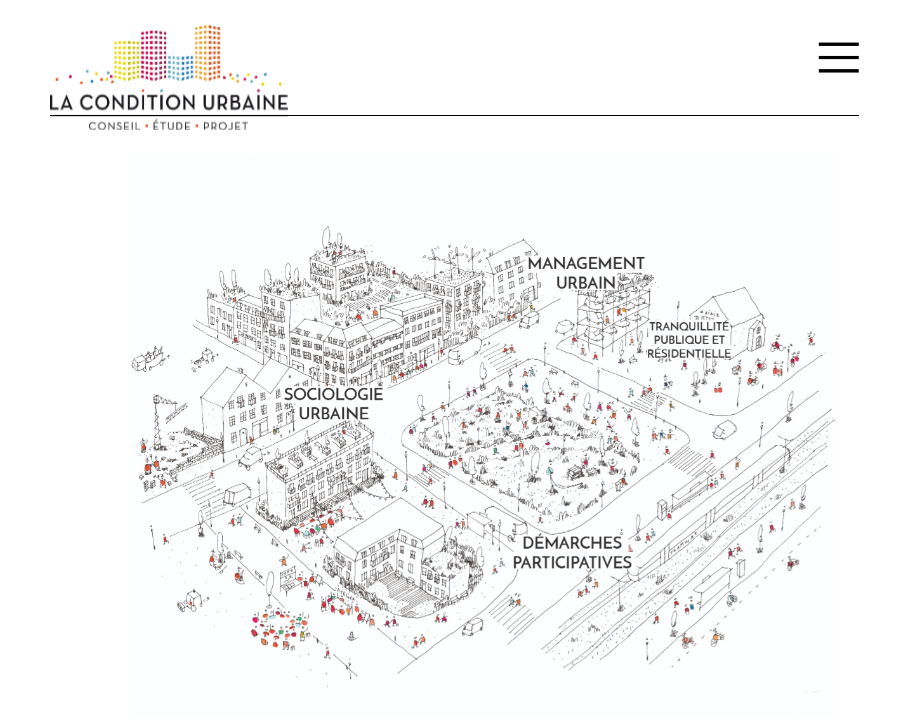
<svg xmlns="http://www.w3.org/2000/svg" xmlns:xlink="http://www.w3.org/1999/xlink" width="908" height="724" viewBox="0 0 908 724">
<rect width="100%" height="100%" fill="#ffffff"/>
<image xlink:href="image0.png" x="50" y="25" width="238" height="105"/>
<image xlink:href="image1.png" x="818" y="42" width="41" height="31"/>
<rect fill="#000000" x="50" y="115" width="809" height="1"/>
<image xlink:href="image2.png" x="131" y="155" width="704" height="563"/>
</svg>
